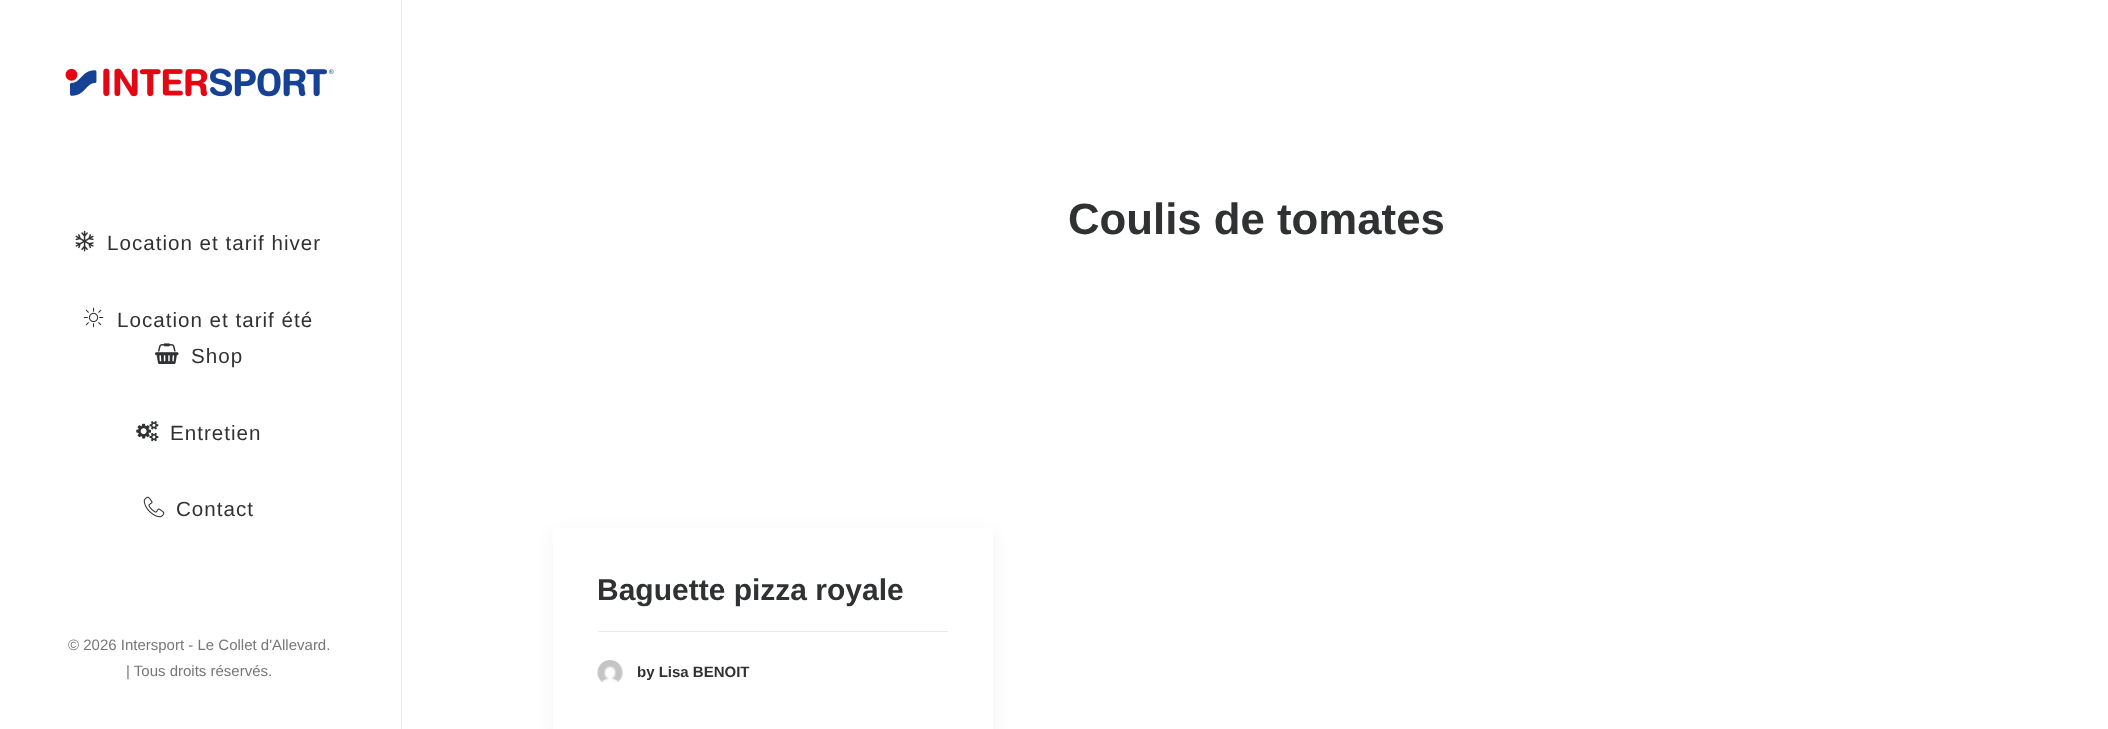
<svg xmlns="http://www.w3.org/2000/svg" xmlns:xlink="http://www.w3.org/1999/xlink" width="2108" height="729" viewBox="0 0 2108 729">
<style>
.cls-1{font:20.6px Liberation Sans;letter-spacing:1px;fill:#303133}
.cls-2{font:15px Liberation Sans;fill:#777777}
.cls-3{font:bold 43.75px Liberation Sans;fill:#303133}
.cls-4{font:bold 30px Liberation Sans;fill:#303133}
.cls-5{font:bold 15px Liberation Sans;fill:#303133}
</style>
<rect width="100%" height="100%" fill="#ffffff"/>
<rect fill="#eaeaea" x="401" y="0" width="1" height="729"/>
<image xlink:href="image0.png" x="65" y="68" width="269" height="29"/>
<image xlink:href="image1.png" x="75" y="230" width="19" height="22"/>
<image xlink:href="image2.png" x="83" y="307" width="21" height="21"/>
<image xlink:href="image3.png" x="155" y="343" width="24" height="21"/>
<image xlink:href="image4.png" x="136" y="421" width="23" height="21"/>
<image xlink:href="image5.png" x="143" y="496" width="22" height="22"/>
<rect fill="#000000" fill-opacity="0.05" filter="blur(9.5px)" x="553" y="534" width="440" height="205"/>
<rect fill="#ffffff" x="553" y="528" width="440" height="201"/>
<rect fill="#eaeaea" x="598" y="631" width="350" height="1"/>
<image xlink:href="image6.png" x="597" y="660" width="26" height="23"/>
<text class="cls-1" x="107" y="250">Location et tarif hiver</text>
<text class="cls-1" x="117" y="327">Location et tarif été</text>
<text class="cls-1" x="191" y="363">Shop</text>
<text class="cls-1" x="170" y="440">Entretien</text>
<text class="cls-1" x="176" y="516">Contact</text>
<text class="cls-2" x="68" y="650">© 2026 Intersport - Le Collet d'Allevard.</text>
<text class="cls-2" x="126" y="676">| Tous droits réservés.</text>
<text class="cls-3" x="1068" y="234">Coulis de tomates</text>
<text class="cls-4" x="597" y="600">Baguette pizza royale</text>
<text class="cls-5" x="637" y="677">by Lisa BENOIT</text>
</svg>
